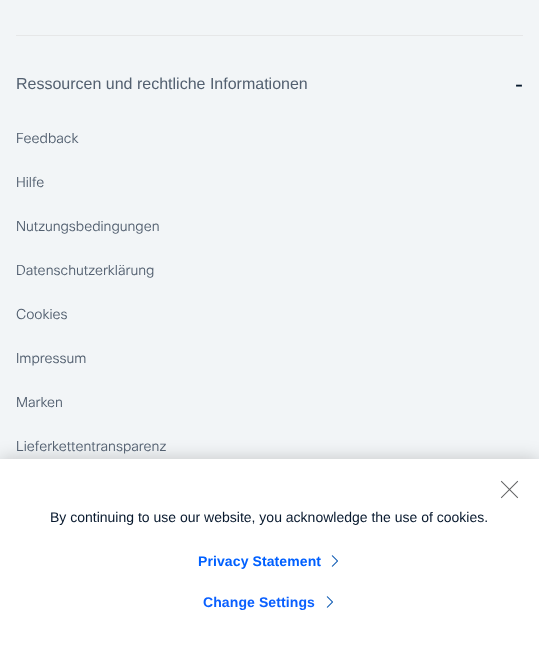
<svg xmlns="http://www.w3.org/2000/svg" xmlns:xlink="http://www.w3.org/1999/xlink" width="539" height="649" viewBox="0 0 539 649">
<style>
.cls-1{font:16px Liberation Sans;fill:#536070}
.cls-2{font:24px Liberation Sans;fill:#07182d}
.cls-3{font:300 14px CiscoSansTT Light;fill:#536070}
.cls-4{font:14px Liberation Sans;fill:#07182d}
.cls-5{font:bold 14px Liberation Sans;letter-spacing:0.1px;fill:#0060ff}
.cls-6{font:bold 14px Liberation Sans;letter-spacing:0.1px;fill:#0a60ff}
</style>
<rect width="100%" height="100%" fill="#f2f5f7"/>
<rect fill="#e6e7e8" x="16" y="35" width="507" height="1"/>
<rect fill="#000000" fill-opacity="0.2" filter="blur(9px)" x="0" y="459" width="539" height="190"/>
<rect fill="#ffffff" x="0" y="459" width="539" height="190"/>
<image xlink:href="image0.png" x="500" y="480" width="19" height="19"/>
<image xlink:href="image1.png" x="331" y="555" width="7" height="12"/>
<image xlink:href="image1.png" x="326" y="596" width="7" height="12"/>
<text class="cls-1" x="16" y="89">Ressourcen und rechtliche Informationen</text>
<text class="cls-2" x="515" y="92">-</text>
<text class="cls-3" x="16" y="143">Feedback</text>
<text class="cls-3" x="16" y="187">Hilfe</text>
<text class="cls-3" x="16" y="231">Nutzungsbedingungen</text>
<text class="cls-3" x="16" y="275">Datenschutzerklärung</text>
<text class="cls-3" x="16" y="319">Cookies</text>
<text class="cls-3" x="16" y="363">Impressum</text>
<text class="cls-3" x="16" y="407">Marken</text>
<text class="cls-3" x="16" y="451">Lieferkettentransparenz</text>
<text class="cls-4" x="50" y="522">By continuing to use our website, you acknowledge the use of cookies.</text>
<text class="cls-5" x="198" y="566">Privacy Statement</text>
<text class="cls-6" x="203" y="607">Change Settings</text>
</svg>
